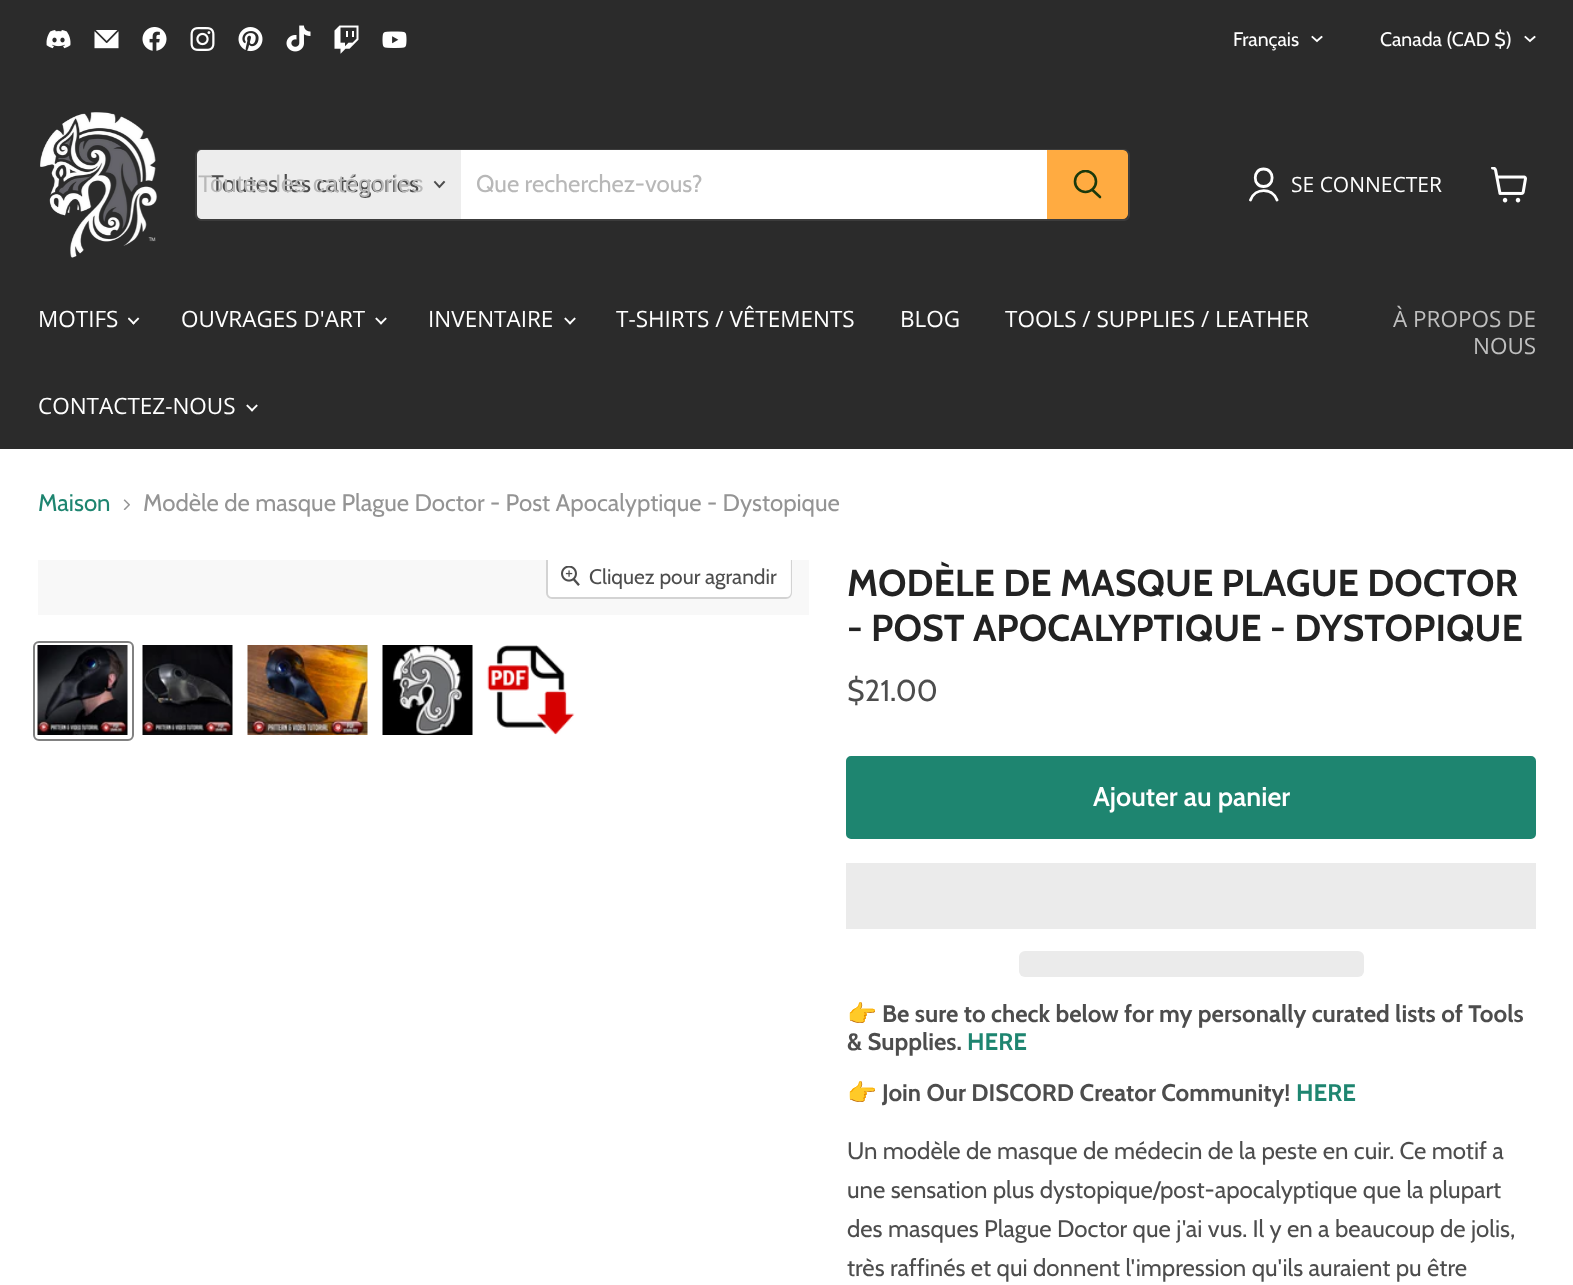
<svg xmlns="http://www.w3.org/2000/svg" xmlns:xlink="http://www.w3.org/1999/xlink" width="1573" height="1285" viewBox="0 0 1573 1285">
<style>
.cls-1{font:19.5px Cabin;fill:#ffffff}
.cls-2{font:24px Cabin;fill:#4d4d4d}
.cls-3{font:24px Liberation Sans;fill:#b8b8b8}
.cls-4{font:24px Cabin;fill:#b8b8b8}
.cls-5{font:21px Open Sans;fill:#ffffff}
.cls-6{font:22.5px Open Sans;fill:#ffffff}
.cls-7{font:22.5px Open Sans;fill:#bfbfbf}
.cls-8{font:24px Cabin;fill:#1e8570}
.cls-9{font:24px Cabin;fill:#949494}
.cls-10{font:21px Cabin;fill:#4d4d4d}
.cls-11{font:bold 37.5px Cabin;fill:#222222}
.cls-12{font:30px Cabin;fill:#4d4d4d}
.cls-13{font:600 27px Cabin;fill:#ffffff}
.cls-14{font:24px Noto Color Emoji;fill:#4d4d4d}
.cls-15{font:bold 24px Cabin;fill:#4d4d4d}
.cls-16{font:bold 24px Cabin;fill:#1e8570}
</style>
<defs>
<clipPath id="clip1"><rect x="1073" y="170" width="30" height="31"/></clipPath>
<clipPath id="clip2"><rect x="38" y="560" width="771" height="55"/></clipPath>
</defs>
<rect width="100%" height="100%" fill="#ffffff"/>
<rect fill="#2b2b2b" x="0" y="0" width="1573" height="449"/>
<image xlink:href="image0.png" x="46" y="30" width="25" height="19"/>
<image xlink:href="image1.png" x="94" y="30" width="25" height="19"/>
<image xlink:href="image2.png" x="142" y="27" width="25" height="24"/>
<image xlink:href="image3.png" x="190" y="27" width="25" height="24"/>
<image xlink:href="image4.png" x="238" y="27" width="25" height="25"/>
<image xlink:href="image5.png" x="286" y="25" width="25" height="27"/>
<image xlink:href="image6.png" x="334" y="25" width="25" height="29"/>
<image xlink:href="image7.png" x="382" y="31" width="25" height="17"/>
<path fill="none" stroke="#ffffff" stroke-width="1.9" stroke-linecap="square" d="M1317 41L1321.5 37M1317 41L1312.5 37"/>
<path fill="none" stroke="#ffffff" stroke-width="1.9" stroke-linecap="square" d="M1530 41L1534.5 37M1530 41L1525.5 37"/>
<image xlink:href="image8.png" x="40" y="112" width="118" height="146"/>
<rect fill="none" stroke="#808080" stroke-opacity="0.2" stroke-width="2" x="196" y="150" width="933" height="70" rx="5"/>
<path fill="#ededed" d="M202 150H461V219H202C199 219 197 217 197 214V155C197 152 199 150 202 150Z"/>
<path fill="none" stroke="#4d4d4d" stroke-width="1.9" stroke-linecap="square" d="M439.5 187L444 182M439.5 187L435 182"/>
<rect fill="#ffffff" x="461" y="150" width="586" height="69"/>
<path fill="#ffab41" stroke="#ffab41" stroke-width="2" d="M1048 151H1123C1125 151 1127 153 1127 155V214C1127 216 1125 218 1123 218H1048Z"/>
<path fill="none" stroke="#1a390c" stroke-width="2.6" stroke-linecap="round" d="M1100 197L1092.5 190"/>
<g clip-path="url(#clip1)">
<circle fill="none" stroke="#1a390c" stroke-width="2.6" cx="1085.5" cy="181.5" r="10.5"/>
</g>
<path fill="none" stroke="#ffffff" stroke-width="2.8" stroke-linecap="round" stroke-linejoin="round" d="M1263.5 186.5C1275 186.5 1275 169 1263.5 169C1252.5 169 1252.5 186.5 1263.5 186.5ZM1277 200C1272.5 187.5 1255 187.5 1250.5 200"/>
<image xlink:href="image9.png" x="1491" y="167" width="36" height="36"/>
<image xlink:href="image10.png" x="128" y="317" width="12" height="8"/>
<image xlink:href="image11.png" x="375" y="317" width="12" height="8"/>
<image xlink:href="image11.png" x="564" y="317" width="12" height="8"/>
<image xlink:href="image11.png" x="246" y="404" width="12" height="8"/>
<image xlink:href="image12.png" x="123" y="499" width="7" height="11"/>
<rect fill="#f8f8f8" x="38" y="560" width="771" height="55"/>
<g clip-path="url(#clip2)">
<rect fill="none" stroke="#d3d3d3" stroke-width="2" x="547" y="555" width="244" height="43" rx="5"/>
</g>
<path fill="#ffffff" fill-opacity="0.9" d="M548 560H791V592C791 595 789 597 786 597H553C550 597 548 595 548 592Z"/>
<image xlink:href="image13.png" x="561" y="566" width="19" height="20"/>
<rect fill="none" stroke="#818181" stroke-width="2" x="34" y="642" width="99" height="98" rx="5"/>
<image xlink:href="image14.png" x="37" y="645" width="91" height="90"/>
<image xlink:href="image15.png" x="142" y="645" width="91" height="90"/>
<image xlink:href="image16.png" x="247" y="645" width="121" height="90"/>
<image xlink:href="image17.png" x="382" y="645" width="91" height="90"/>
<image xlink:href="image18.png" x="487" y="645" width="88" height="90"/>
<rect fill="#1e8570" stroke="#1e8570" stroke-width="2" x="847" y="757" width="688" height="81" rx="4"/>
<rect fill="#ebebeb" x="846" y="863" width="690" height="66"/>
<rect fill="#ebebeb" x="1019" y="951" width="345" height="26" rx="6"/>
<text class="cls-1" x="1233" y="46">Français</text>
<text class="cls-1" x="1380" y="46">Canada (CAD $)</text>
<text class="cls-2" x="211" y="192">Toutes les catégories</text>
<text class="cls-3" x="198" y="192">Toutes les catégories</text>
<text class="cls-4" x="476" y="192">Que recherchez-vous?</text>
<text class="cls-5" x="1291" y="192">SE CONNECTER</text>
<text class="cls-6" x="38" y="327">MOTIFS</text>
<text class="cls-6" x="181" y="327">OUVRAGES D'ART</text>
<text class="cls-6" x="428" y="327">INVENTAIRE</text>
<text class="cls-6" x="616" y="327">T-SHIRTS / VÊTEMENTS</text>
<text class="cls-6" x="900" y="327">BLOG</text>
<text class="cls-6" x="1005" y="327">TOOLS / SUPPLIES / LEATHER</text>
<text class="cls-6" x="38" y="414">CONTACTEZ-NOUS</text>
<text class="cls-7" x="1393" y="327">À PROPOS DE</text>
<text class="cls-7" x="1473" y="354">NOUS</text>
<text class="cls-8" x="38" y="511">Maison</text>
<text class="cls-9" x="143" y="511">Modèle de masque Plague Doctor - Post Apocalyptique - Dystopique</text>
<text class="cls-10" x="589" y="584">Cliquez pour agrandir</text>
<text class="cls-11"><tspan x="847" y="596">MODÈLE DE MASQUE PLAGUE DOCTOR</tspan><tspan x="847" y="641">- POST APOCALYPTIQUE - DYSTOPIQUE</tspan></text>
<text class="cls-12" x="847" y="701">$21.00</text>
<text class="cls-13" x="1093" y="806">Ajouter au panier</text>
<text class="cls-14" x="847" y="1022">👉</text>
<text class="cls-15" x="882" y="1022">Be sure to check below for my personally curated lists of Tools</text>
<text class="cls-15" x="847" y="1050">&amp; Supplies.</text>
<text class="cls-16" x="967" y="1050">HERE</text>
<text class="cls-14" x="847" y="1101">👉</text>
<text class="cls-15" x="882" y="1101">Join Our DISCORD Creator Community!</text>
<text class="cls-16" x="1296" y="1101">HERE</text>
<text class="cls-2"><tspan x="847" y="1159">Un modèle de masque de médecin de la peste en cuir. Ce motif a</tspan><tspan x="847" y="1198">une sensation plus dystopique/post-apocalyptique que la plupart</tspan><tspan x="847" y="1237">des masques Plague Doctor que j'ai vus. Il y en a beaucoup de jolis,</tspan><tspan x="847" y="1276">très raffinés et qui donnent l'impression qu'ils auraient pu être</tspan></text>
</svg>
